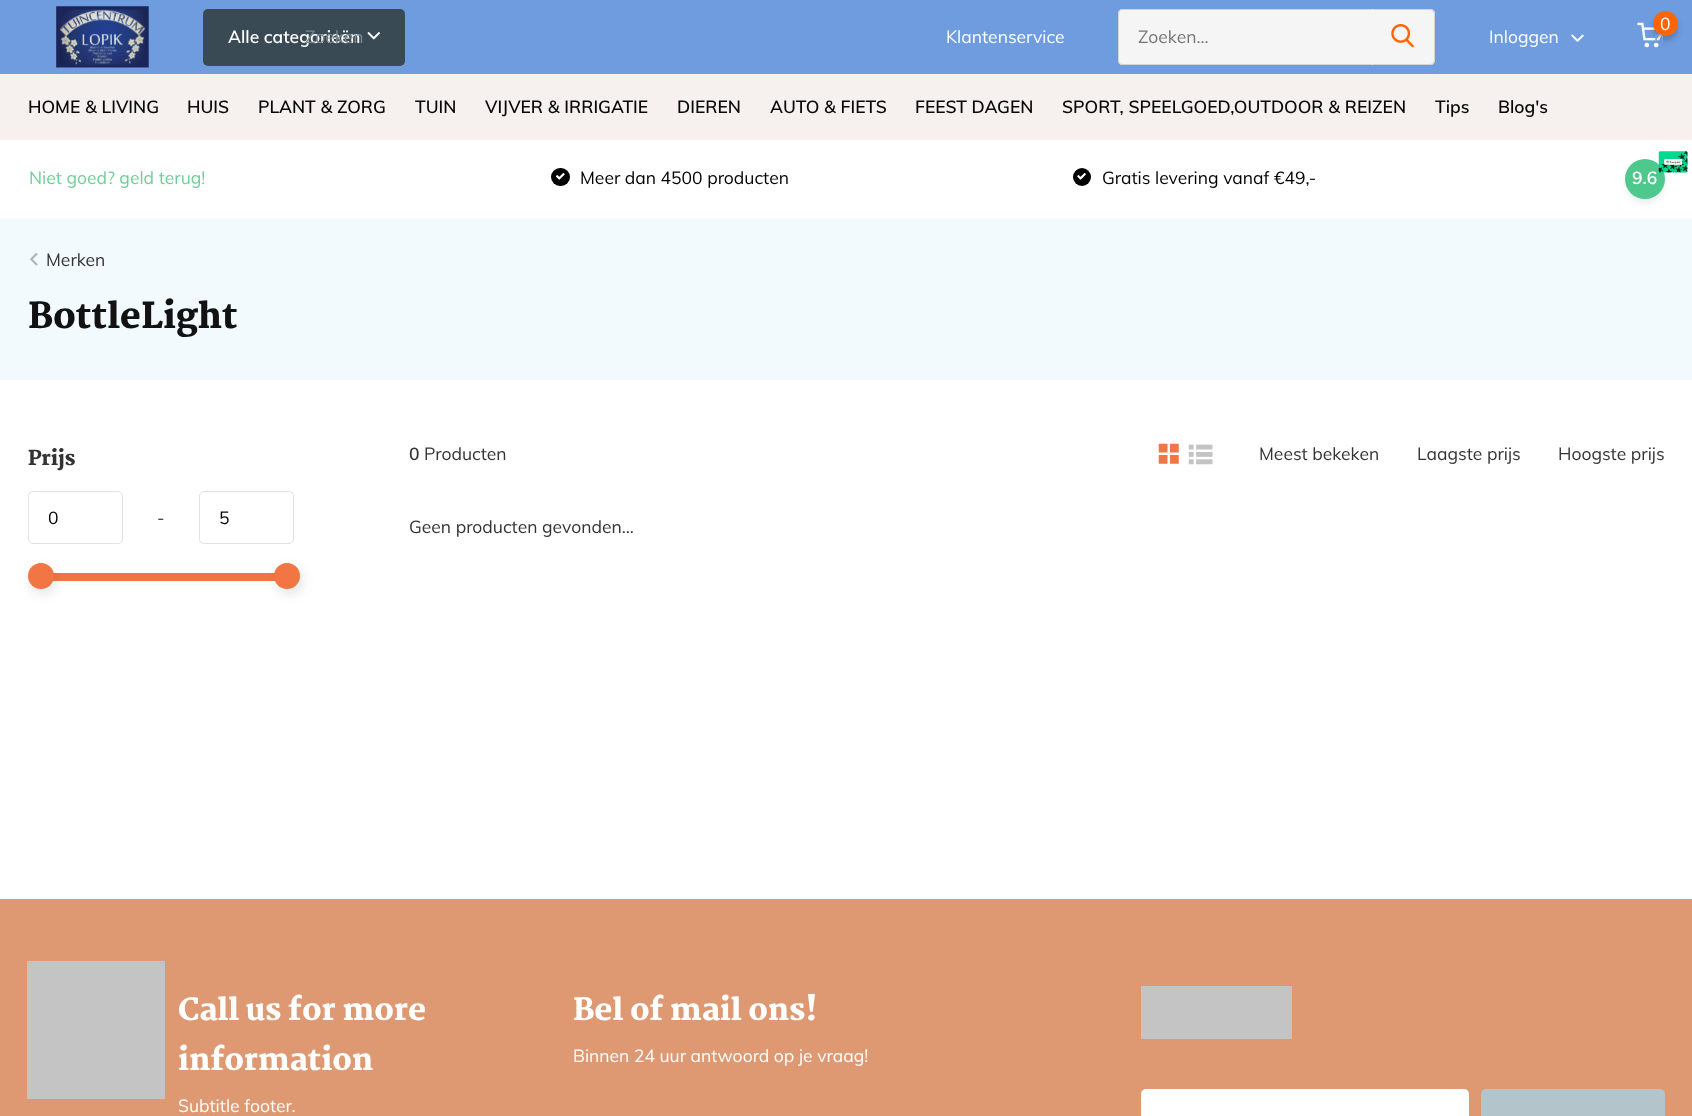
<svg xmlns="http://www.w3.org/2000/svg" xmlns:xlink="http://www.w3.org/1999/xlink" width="1692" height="1116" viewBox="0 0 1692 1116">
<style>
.cls-1{font:600 17.5px Muli;fill:#ffffff}
.cls-2{font:17.5px Muli;fill:#ffffff}
.cls-3{font:17.5px Muli;fill:#757575}
.cls-4{font:17.5px Muli;fill:#7b878d}
.cls-5{font:500 17.5px Muli;letter-spacing:1px;fill:#78a0dc}
.cls-6{font:600 17.5px Muli;fill:#080808}
.cls-7{font:17.5px Muli;fill:#6fcf97}
.cls-8{font:17.5px Muli;fill:#000000}
.cls-9{font:17.5px Muli;fill:#333333}
.cls-10{font:900 35px Martel;fill:#121212}
.cls-11{font:900 20px Martel;fill:#333333}
.cls-12{font:600 17.5px Muli;fill:#333333}
.cls-13{font:900 30px Martel;fill:#ffffff}
</style>
<rect width="100%" height="100%" fill="#ffffff"/>
<rect fill="#6e9cdf" x="0" y="0" width="1692" height="74"/>
<image xlink:href="image0.png" x="56" y="6" width="93" height="62"/>
<rect fill="#394a54" x="203" y="9" width="202" height="57" rx="5"/>
<image xlink:href="image1.png" x="367" y="32" width="13" height="8"/>
<image xlink:href="image2.png" x="1637" y="22" width="25" height="26"/>
<rect fill="#282830" fill-opacity="0.25" filter="blur(2.5px)" x="1653" y="16" width="25" height="25" rx="12.5"/>
<circle fill="#ff6602" cx="1665.5" cy="23.5" r="12.5"/>
<path fill="#f5f5f5" d="M1373 9H1430C1433 9 1435 11 1435 14V60C1435 63 1433 65 1430 65H1373Z"/>
<path fill="#d4d4d4" fill-rule="evenodd" d="M1372 9H1430C1433 9 1435 11 1435 14V60C1435 63 1433 65 1430 65H1372ZM1372 10H1430C1432 10 1434 12 1434 14V60C1434 62 1432 64 1430 64H1372Z"/>
<path fill="#f5f5f5" d="M1123 9H1373V65H1123C1120 65 1118 63 1118 60V14C1118 11 1120 9 1123 9Z"/>
<path fill="#d4d4d4" fill-rule="evenodd" d="M1122 9H1372V65H1122C1120 65 1118 63 1118 60V14C1118 11 1120 9 1122 9ZM1122 10H1372V64H1122C1120 64 1119 62 1119 60V14C1119 12 1120 10 1122 10Z"/>
<image xlink:href="image3.png" x="1391" y="24" width="23" height="24"/>
<image xlink:href="image4.png" x="1571" y="34" width="13" height="8"/>
<rect fill="#f6f1ee" x="0" y="74" width="1692" height="66"/>
<rect fill="#000000" x="551" y="168" width="19" height="18" rx="9"/>
<image xlink:href="image5.png" x="555" y="173" width="10" height="7"/>
<circle fill="#000000" cx="1082" cy="177" r="9"/>
<image xlink:href="image6.png" x="1077" y="173" width="9" height="7"/>
<rect fill="#000000" fill-opacity="0.06" filter="blur(2.5px)" x="1625" y="164" width="40" height="40" rx="20"/>
<circle fill="#4dc98d" cx="1645" cy="179" r="20"/>
<image xlink:href="image7.png" x="1658" y="151" width="30" height="22"/>
<rect fill="#f2fafe" x="0" y="218" width="1692" height="162"/>
<image xlink:href="image8.png" x="30" y="253" width="8" height="13"/>
<rect fill="none" stroke="#e2e2e2" x="28.5" y="491.5" width="94" height="52" rx="4.5"/>
<rect fill="none" stroke="#e2e2e2" x="199.5" y="491.5" width="94" height="52" rx="4.5"/>
<rect fill="#f27544" x="53" y="573" width="222" height="8"/>
<rect fill="#000000" fill-opacity="0.1" filter="blur(6px)" x="30" y="568" width="26" height="26" rx="13"/>
<circle fill="#f27544" cx="41" cy="576" r="13"/>
<rect fill="#000000" fill-opacity="0.1" filter="blur(6px)" x="276" y="568" width="27" height="26" rx="13"/>
<circle fill="#f27544" cx="287" cy="576" r="13"/>
<image xlink:href="image9.png" x="1158" y="443" width="21" height="21"/>
<image xlink:href="image10.png" x="1188" y="444" width="25" height="21"/>
<rect fill="#de9972" x="0" y="899" width="1692" height="217"/>
<rect fill="#c4c4c4" x="27" y="961" width="138" height="138"/>
<rect fill="#c4c4c4" x="1141" y="986" width="151" height="53"/>
<rect fill="#ffffff" x="1141" y="1089" width="328" height="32" rx="5"/>
<rect fill="#b3c4ca" x="1481" y="1089" width="184" height="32" rx="5"/>
<text class="cls-1" x="228" y="43">Alle categorieën</text>
<text class="cls-2" x="1660" y="30">0</text>
<text class="cls-2" x="946" y="43">Klantenservice</text>
<text class="cls-3" x="1138" y="43">Zoeken...</text>
<text class="cls-2" x="1489" y="43">Inloggen</text>
<text class="cls-4" x="305" y="43">Zoeken</text>
<text class="cls-5" x="1654" y="43">n</text>
<text class="cls-6" x="28" y="113">HOME &amp; LIVING</text>
<text class="cls-6" x="187" y="113">HUIS</text>
<text class="cls-6" x="258" y="113">PLANT &amp; ZORG</text>
<text class="cls-6" x="415" y="113">TUIN</text>
<text class="cls-6" x="485" y="113">VIJVER &amp; IRRIGATIE</text>
<text class="cls-6" x="677" y="113">DIEREN</text>
<text class="cls-6" x="770" y="113">AUTO &amp; FIETS</text>
<text class="cls-6" x="915" y="113">FEEST DAGEN</text>
<text class="cls-6" x="1062" y="113">SPORT, SPEELGOED,OUTDOOR &amp; REIZEN</text>
<text class="cls-6" x="1435" y="113">Tips</text>
<text class="cls-6" x="1498" y="113">Blog's</text>
<text class="cls-7" x="29" y="184">Niet goed? geld terug!</text>
<text class="cls-8" x="580" y="184">Meer dan 4500 producten</text>
<text class="cls-8" x="1102" y="184">Gratis levering vanaf €49,-</text>
<text class="cls-1" x="1632" y="184">9.6</text>
<text class="cls-9" x="46" y="266">Merken</text>
<text class="cls-10" x="28" y="328">BottleLight</text>
<text class="cls-11" x="28" y="465">Prijs</text>
<text class="cls-8" x="48" y="524">0</text>
<text class="cls-9" x="157" y="524">-</text>
<text class="cls-8" x="219" y="524">5</text>
<text class="cls-12" x="409" y="460">0</text>
<text class="cls-9" x="424" y="460">Producten</text>
<text class="cls-9" x="1259" y="460">Meest bekeken</text>
<text class="cls-9" x="1417" y="460">Laagste prijs</text>
<text class="cls-9" x="1558" y="460">Hoogste prijs</text>
<text class="cls-9" x="409" y="533">Geen producten gevonden...</text>
<text class="cls-13"><tspan x="178" y="1020">Call us for more</tspan><tspan x="178" y="1070">information</tspan></text>
<text class="cls-2" x="178" y="1112">Subtitle footer.</text>
<text class="cls-13" x="573" y="1020">Bel of mail ons!</text>
<text class="cls-2" x="573" y="1062">Binnen 24 uur antwoord op je vraag!</text>
</svg>
